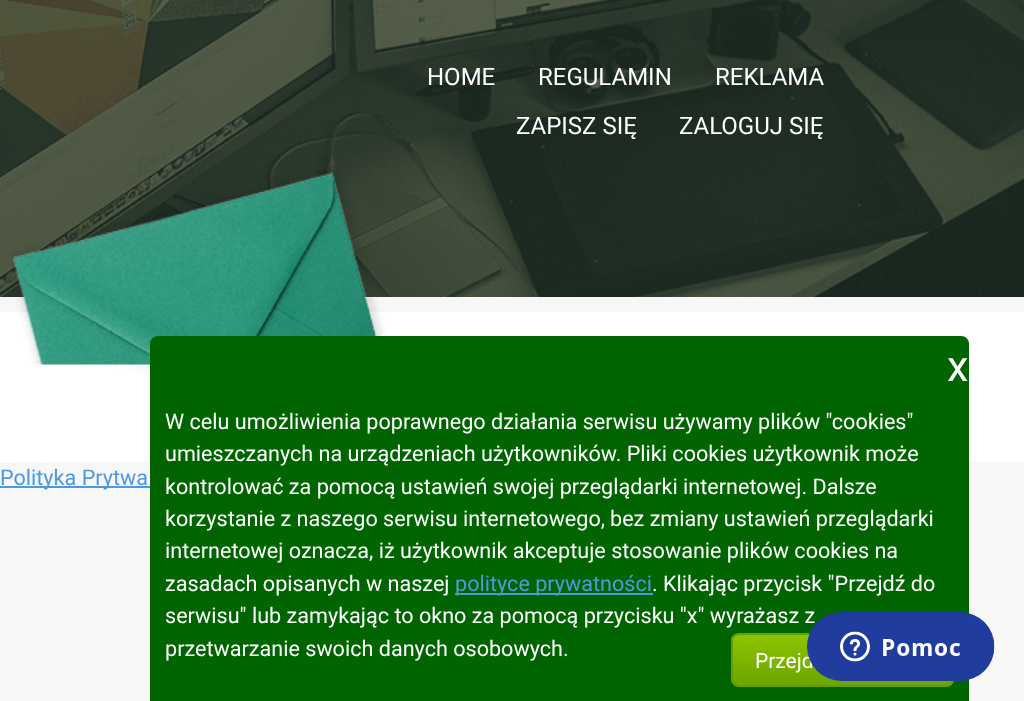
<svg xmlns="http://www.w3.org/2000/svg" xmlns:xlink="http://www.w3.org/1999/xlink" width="1024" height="701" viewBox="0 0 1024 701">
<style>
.cls-1{font:24px Roboto;fill:#ffffff}
.cls-2{font:21.6px Roboto;fill:#4d99e0}
.cls-3{font:43px Roboto;fill:#ffffff}
.cls-4{font:21.6px Roboto;fill:#ffffff}
.cls-5{font:21px Roboto;fill:#ffffff}
</style>
<defs>
<clipPath id="clip1"><rect x="731" y="633" width="223" height="54" rx="8"/></clipPath>
<linearGradient id="g1" gradientUnits="userSpaceOnUse" x1="842" y1="635" x2="842" y2="686"><stop offset="0" stop-color="#8fc400"/><stop offset="1" stop-color="#6ba500"/></linearGradient>
</defs>
<rect width="100%" height="100%" fill="#f7f7f7"/>
<image xlink:href="image0.png" x="0" y="0" width="1024" height="297"/>
<rect fill="#ffffff" x="0" y="312" width="1024" height="150"/>
<image xlink:href="image1.png" x="11" y="169" width="374" height="205"/>
<rect fill="#4d99e0" x="0" y="486" width="150" height="2"/>
<path fill="#006400" d="M158 336H961C965.5 336 969 339.5 969 344V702H150V344C150 339.5 153.5 336 158 336Z"/>
<rect fill="#4d99e0" x="455" y="593" width="198" height="2"/>
<g clip-path="url(#clip1)">
<rect fill="url(#g1)" x="731" y="635" width="223" height="51"/>
</g>
<rect fill="none" stroke="#669e00" stroke-width="2" x="732" y="634" width="221" height="52" rx="7"/>
<text class="cls-1" x="427" y="85">HOME</text>
<text class="cls-1" x="538" y="85">REGULAMIN</text>
<text class="cls-1" x="715" y="85">REKLAMA</text>
<text class="cls-1" x="516" y="134">ZAPISZ SIĘ</text>
<text class="cls-1" x="679" y="134">ZALOGUJ SIĘ</text>
<text class="cls-2" x="0" y="485">Polityka Prytwa</text>
<text class="cls-3" x="947" y="381">x</text>
<text class="cls-4"><tspan x="165" y="429">W celu umożliwienia poprawnego działania serwisu używamy plików "cookies"</tspan><tspan x="165" y="461">umieszczanych na urządzeniach użytkowników. Pliki cookies użytkownik może</tspan><tspan x="165" y="494">kontrolować za pomocą ustawień swojej przeglądarki internetowej. Dalsze</tspan><tspan x="165" y="526">korzystanie z naszego serwisu internetowego,</tspan></text>
<text class="cls-4" x="610" y="526">bez zmiany ustawień przeglądarki</text>
<text class="cls-4"><tspan x="165" y="558">internetowej oznacza, iż użytkownik akceptuje stosowanie plików cookies na</tspan><tspan x="165" y="591">zasadach opisanych w naszej</tspan></text>
<text class="cls-2" x="455" y="591">polityce prywatności</text>
<text class="cls-4" x="652" y="591">. Klikając przycisk "Przejdź do</text>
<text class="cls-4"><tspan x="165" y="623">serwisu" lub zamykając to okno za pomocą przycisku "x" wyrażasz z</tspan><tspan x="165" y="656">przetwarzanie swoich danych osobowych.</tspan></text>
<text class="cls-5" x="755" y="668">Przejd</text>
<image xlink:href="image2.png" x="807" y="612" width="188" height="69"/>
</svg>
